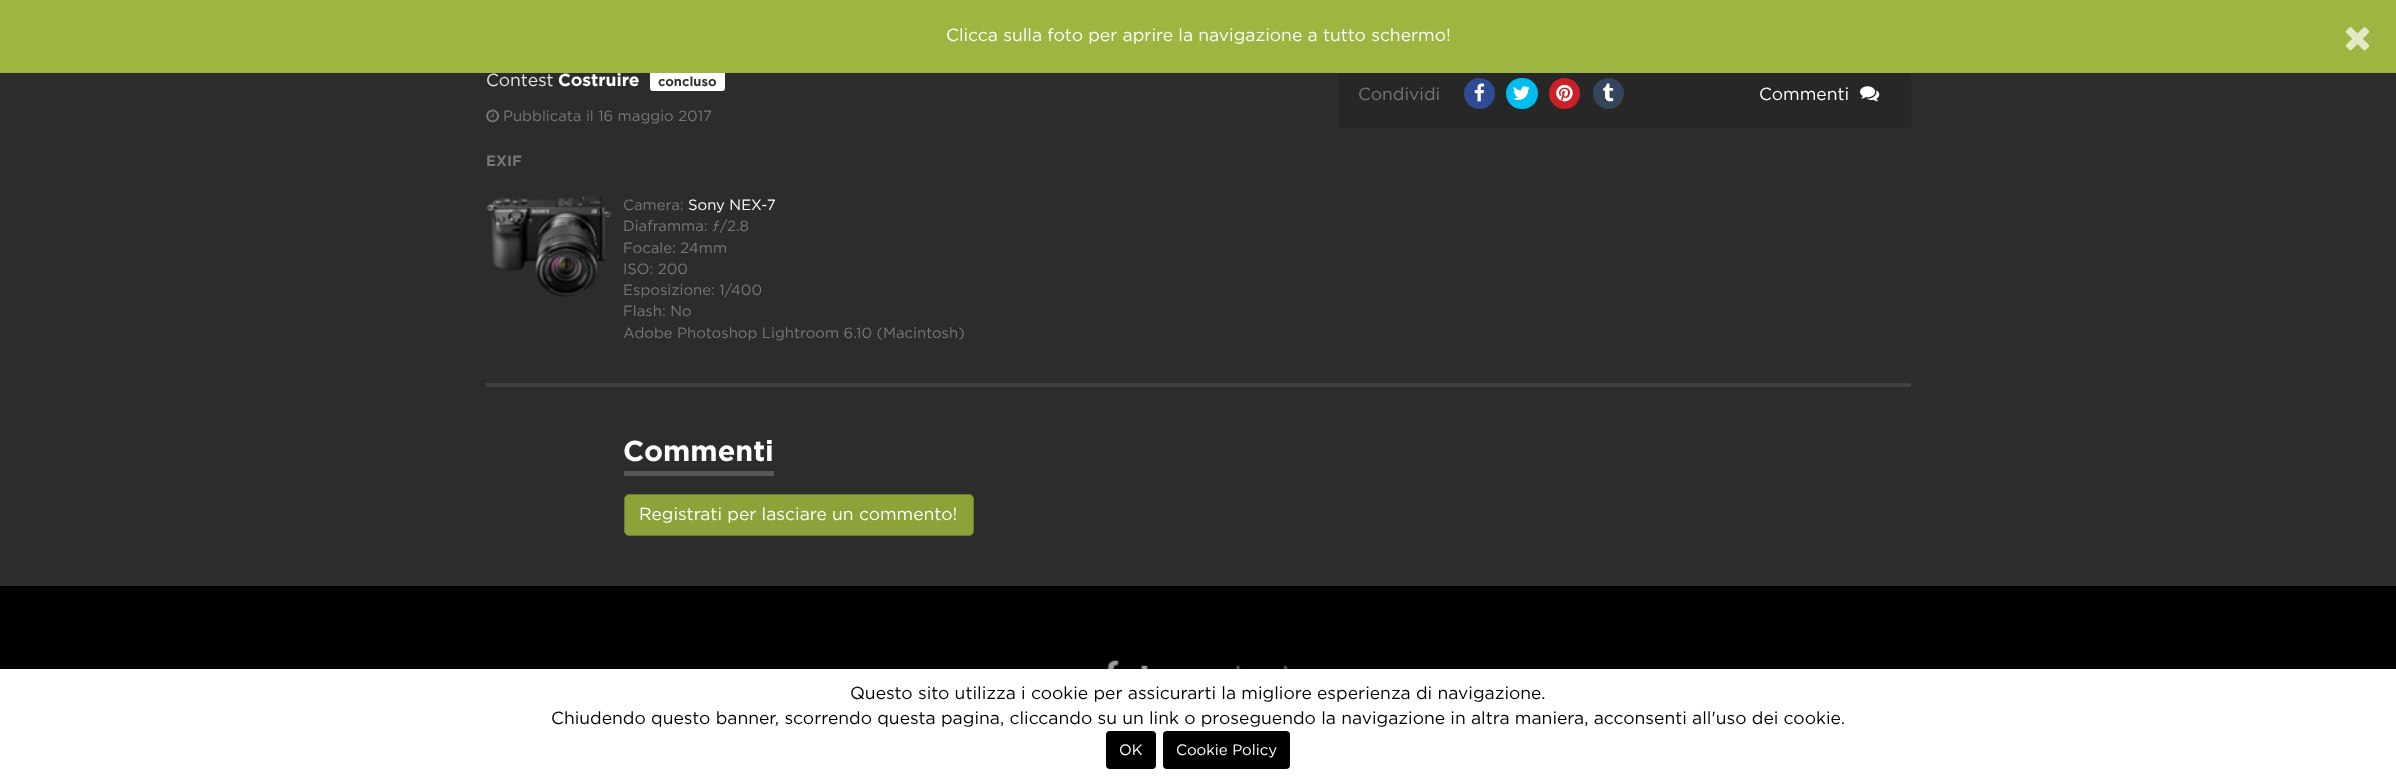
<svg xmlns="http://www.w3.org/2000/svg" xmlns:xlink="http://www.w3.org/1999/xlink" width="2396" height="781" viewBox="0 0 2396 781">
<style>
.cls-1{font:17.5px Gotham;fill:#ffffff}
.cls-2{font:17.5px Gotham;fill:#e6e6e6}
.cls-3{font:bold 17.5px Gotham;fill:#ffffff}
.cls-4{font:bold 13px Gotham;fill:#333333}
.cls-5{font:14.9px Gotham;fill:#777777}
.cls-6{font:bold 14.9px Gotham;fill:#777777}
.cls-7{font:14.9px Gotham;fill:#ffffff}
.cls-8{font:17.5px Gotham;fill:#777777}
.cls-9{font:bold 28.75px Gotham;fill:#ffffff}
.cls-10{font:17.5px Gotham;fill:#000000}
.cls-11{font:15px Gotham;fill:#ffffff}
</style>
<rect width="100%" height="100%" fill="#2c2c2c"/>
<rect fill="#ffffff" x="650" y="71" width="75" height="20" rx="3"/>
<rect fill="#9cb641" x="0" y="0" width="2396" height="73"/>
<image xlink:href="image0.png" x="2345" y="27" width="25" height="24"/>
<image xlink:href="image1.png" x="486" y="109" width="13" height="14"/>
<image xlink:href="image2.png" x="486" y="196" width="126" height="101"/>
<rect fill="#272727" x="1339" y="73" width="572" height="55"/>
<circle fill="#2f4b93" cx="1479.5" cy="93.5" r="15.5"/>
<image xlink:href="image3.png" x="1474" y="83" width="11" height="19"/>
<rect fill="#00bdef" x="1506" y="78" width="32" height="31" rx="15.5"/>
<image xlink:href="image4.png" x="1513" y="86" width="17" height="14"/>
<circle fill="#cb2027" cx="1564.5" cy="93.5" r="15.5"/>
<image xlink:href="image5.png" x="1556" y="84" width="17" height="18"/>
<circle fill="#35465c" cx="1608.5" cy="93.5" r="15.5"/>
<image xlink:href="image6.png" x="1603" y="83" width="11" height="19"/>
<image xlink:href="image7.png" x="1860" y="86" width="20" height="16"/>
<rect fill="#414141" x="486" y="383" width="1425" height="4"/>
<rect fill="#565656" x="624" y="471" width="150" height="5"/>
<rect fill="#8ca33a" stroke="#6c7e2d" x="624.5" y="494.5" width="349" height="41" rx="4.5"/>
<rect fill="#000000" x="0" y="586" width="2396" height="83"/>
<image xlink:href="image8.png" x="1107" y="660" width="181" height="9"/>
<rect fill="#ffffff" x="0" y="669" width="2396" height="112"/>
<rect fill="#000000" x="1106" y="731" width="50" height="38" rx="4"/>
<rect fill="#000000" x="1163" y="731" width="127" height="38" rx="4"/>
<text class="cls-1" x="946" y="41">Clicca sulla foto per aprire la navigazione a tutto schermo!</text>
<text class="cls-2" x="486" y="86">Contest</text>
<text class="cls-3" x="558" y="86">Costruire</text>
<text class="cls-4" x="658" y="86">concluso</text>
<text class="cls-5" x="503" y="121">Pubblicata il 16 maggio 2017</text>
<text class="cls-6" x="486" y="166">EXIF</text>
<text class="cls-5" x="623" y="210">Camera:</text>
<text class="cls-7" x="688" y="210">Sony NEX-7</text>
<text class="cls-5"><tspan x="623" y="231">Diaframma: ƒ/2.8</tspan><tspan x="623" y="253">Focale: 24mm</tspan><tspan x="623" y="274">ISO: 200</tspan><tspan x="623" y="295">Esposizione: 1/400</tspan><tspan x="623" y="316">Flash: No</tspan><tspan x="623" y="338">Adobe Photoshop Lightroom 6.10 (Macintosh)</tspan></text>
<text class="cls-8" x="1358" y="100">Condividi</text>
<text class="cls-1" x="1759" y="100">Commenti</text>
<text class="cls-9" x="623" y="461">Commenti</text>
<text class="cls-1" x="639" y="520">Registrati per lasciare un commento!</text>
<text class="cls-10" x="850" y="699">Questo sito utilizza i cookie per assicurarti la migliore esperienza di navigazione.</text>
<text class="cls-10" x="551" y="724">Chiudendo questo banner, scorrendo questa pagina, cliccando su un link o proseguendo la navigazione in altra maniera, acconsenti all'uso dei cookie.</text>
<text class="cls-11" x="1119" y="755">OK</text>
<text class="cls-11" x="1176" y="755">Cookie Policy</text>
</svg>
